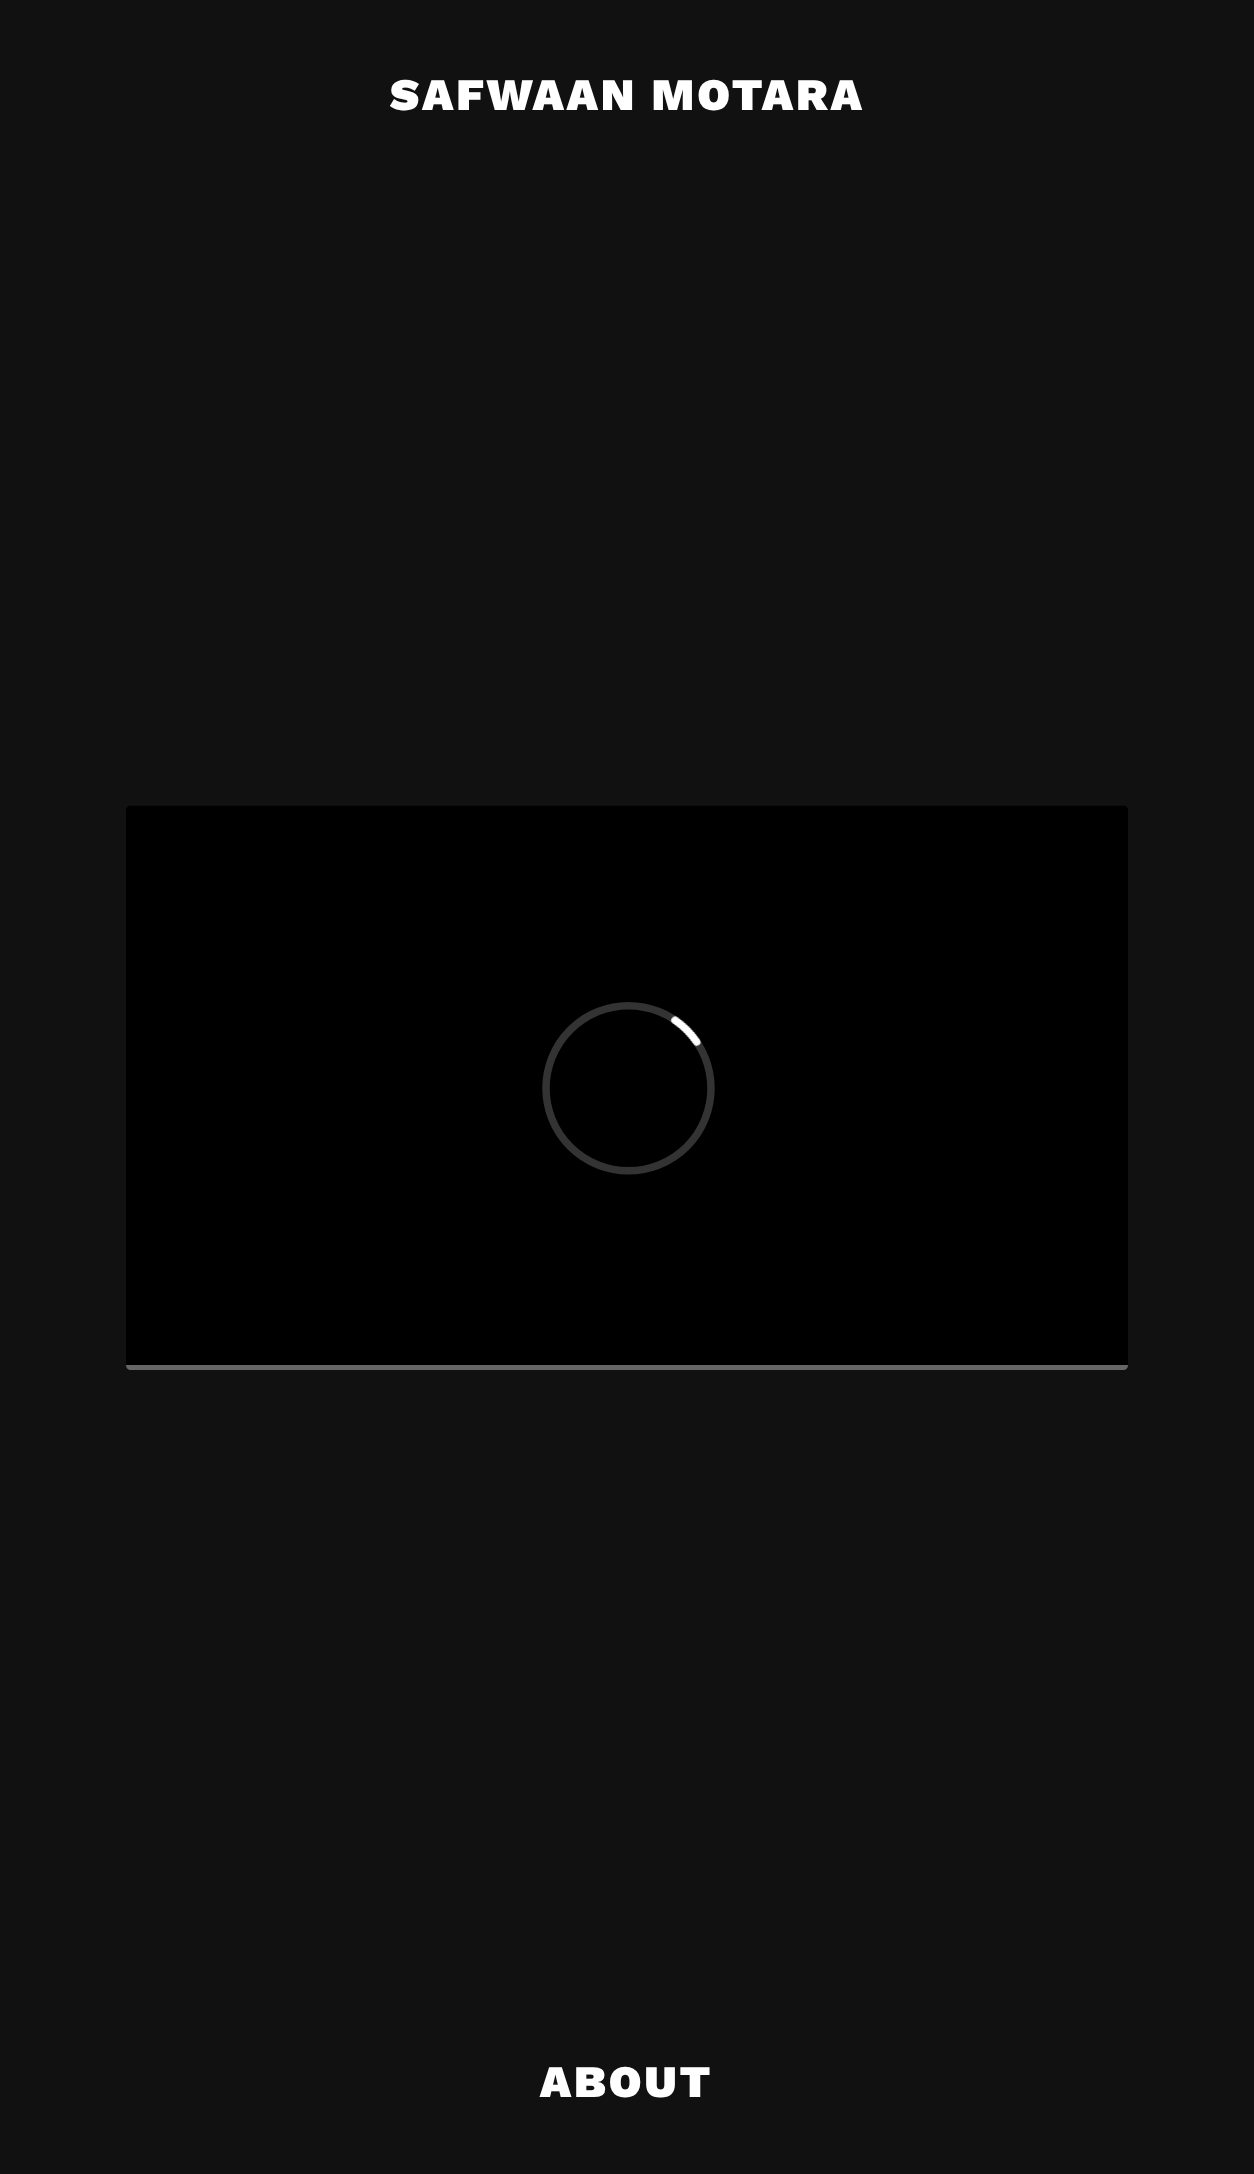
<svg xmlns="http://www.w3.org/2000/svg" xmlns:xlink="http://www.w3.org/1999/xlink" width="1254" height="2174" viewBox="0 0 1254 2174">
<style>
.cls-1{font:900 45px Work Sans;letter-spacing:3px;fill:#ffffff}
</style>
<defs>
<linearGradient id="g1" gradientUnits="userSpaceOnUse" x1="627" y1="1302" x2="627" y2="1370"><stop offset="0" stop-color="#000000" stop-opacity="0"/><stop offset="1" stop-color="#000000" stop-opacity="0.7"/></linearGradient>
</defs>
<rect width="100%" height="100%" fill="#111111"/>
<rect fill="#000000" x="126" y="806" width="1002" height="564" rx="5"/>
<image xlink:href="image0.png" x="126" y="805" width="1002" height="370"/>
<path fill="url(#g1)" d="M126 1302H1128V1365C1128 1368 1126 1370 1123 1370H131C128 1370 126 1368 126 1365Z"/>
<path fill="#ffffff" fill-opacity="0.2" d="M126 1365H1128C1128 1368 1126 1370 1123 1370H131C128 1370 126 1368 126 1365Z"/>
<path fill="#ffffff" fill-opacity="0.25" d="M126 1365H1128C1128 1368 1126 1370 1123 1370H131C128 1370 126 1368 126 1365Z"/>
<text class="cls-1" x="390" y="110">SAFWAAN MOTARA</text>
<text class="cls-1" x="540" y="2097">ABOUT</text>
</svg>
